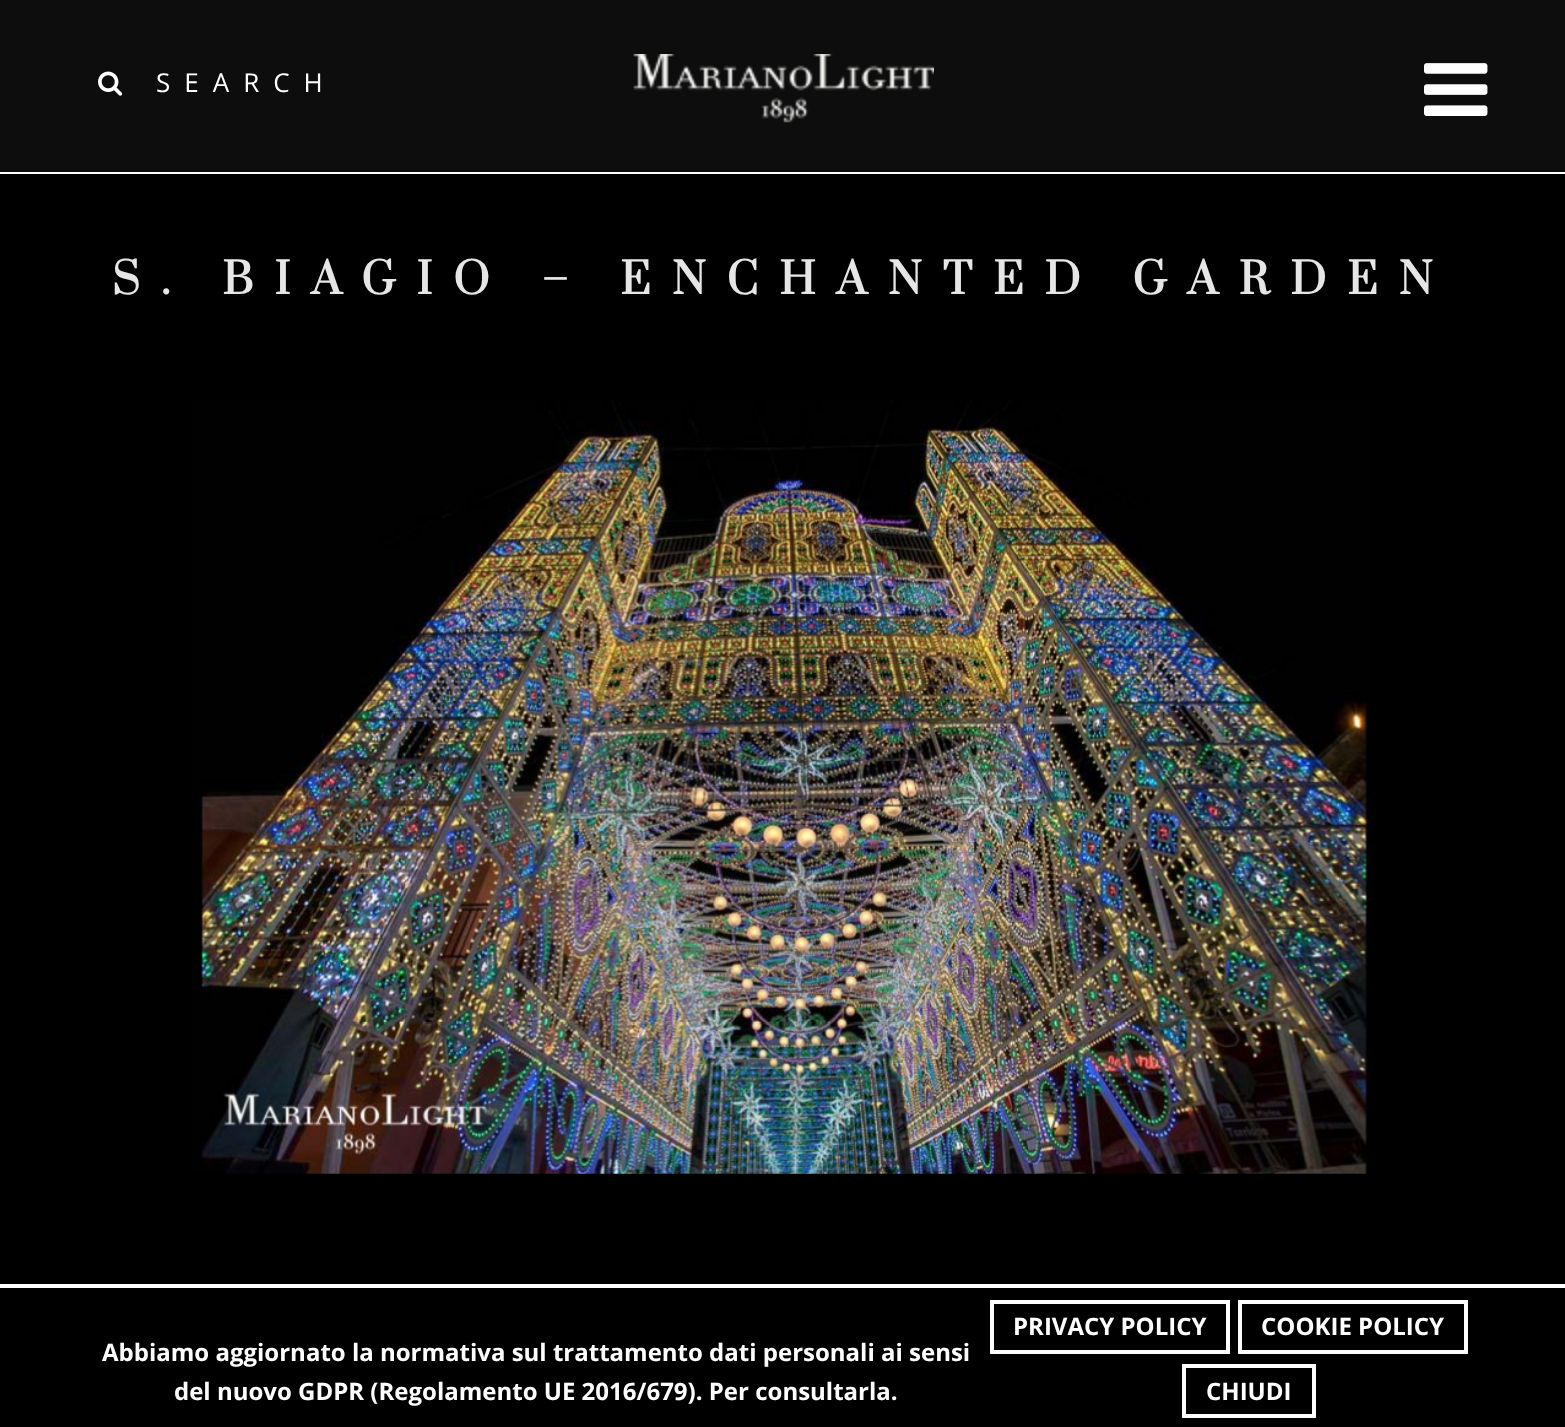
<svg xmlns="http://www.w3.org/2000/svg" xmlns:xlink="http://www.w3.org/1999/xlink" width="1565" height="1427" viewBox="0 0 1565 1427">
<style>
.cls-1{font:26px Open Sans;letter-spacing:14px;fill:#ffffff}
.cls-2{font:bold 42px Prata;letter-spacing:21px;fill:#e6e6e6}
.cls-3{font:bold 24px Open Sans;fill:#ffffff}
</style>
<rect width="100%" height="100%" fill="#000000"/>
<rect fill="#0d0d0d" x="0" y="0" width="1565" height="172"/>
<rect fill="#ffffff" x="0" y="172" width="1565" height="2"/>
<image xlink:href="image0.png" x="98" y="71" width="25" height="25"/>
<image xlink:href="image1.png" x="633" y="54" width="301" height="69"/>
<image xlink:href="image2.png" x="1424" y="63" width="64" height="53"/>
<image xlink:href="image3.png" x="192" y="400" width="1181" height="774"/>
<rect fill="#ffffff" x="0" y="1284" width="1565" height="4"/>
<rect fill="none" stroke="#ffffff" stroke-width="4" x="992" y="1302" width="236" height="50"/>
<rect fill="none" stroke="#ffffff" stroke-width="4" x="1240" y="1302" width="226" height="50"/>
<rect fill="none" stroke="#ffffff" stroke-width="4" x="1184" y="1366" width="130" height="50"/>
<text class="cls-1" x="156" y="92">SEARCH</text>
<text class="cls-2" x="112" y="294">S. BIAGIO – ENCHANTED GARDEN</text>
<text class="cls-3" x="102" y="1361">Abbiamo aggiornato la normativa sul trattamento dati personali ai sensi</text>
<text class="cls-3" x="174" y="1400">del nuovo GDPR (Regolamento UE 2016/679). Per consultarla.</text>
<text class="cls-3" x="1013" y="1335">PRIVACY POLICY</text>
<text class="cls-3" x="1261" y="1335">COOKIE POLICY</text>
<text class="cls-3" x="1206" y="1400">CHIUDI</text>
</svg>
